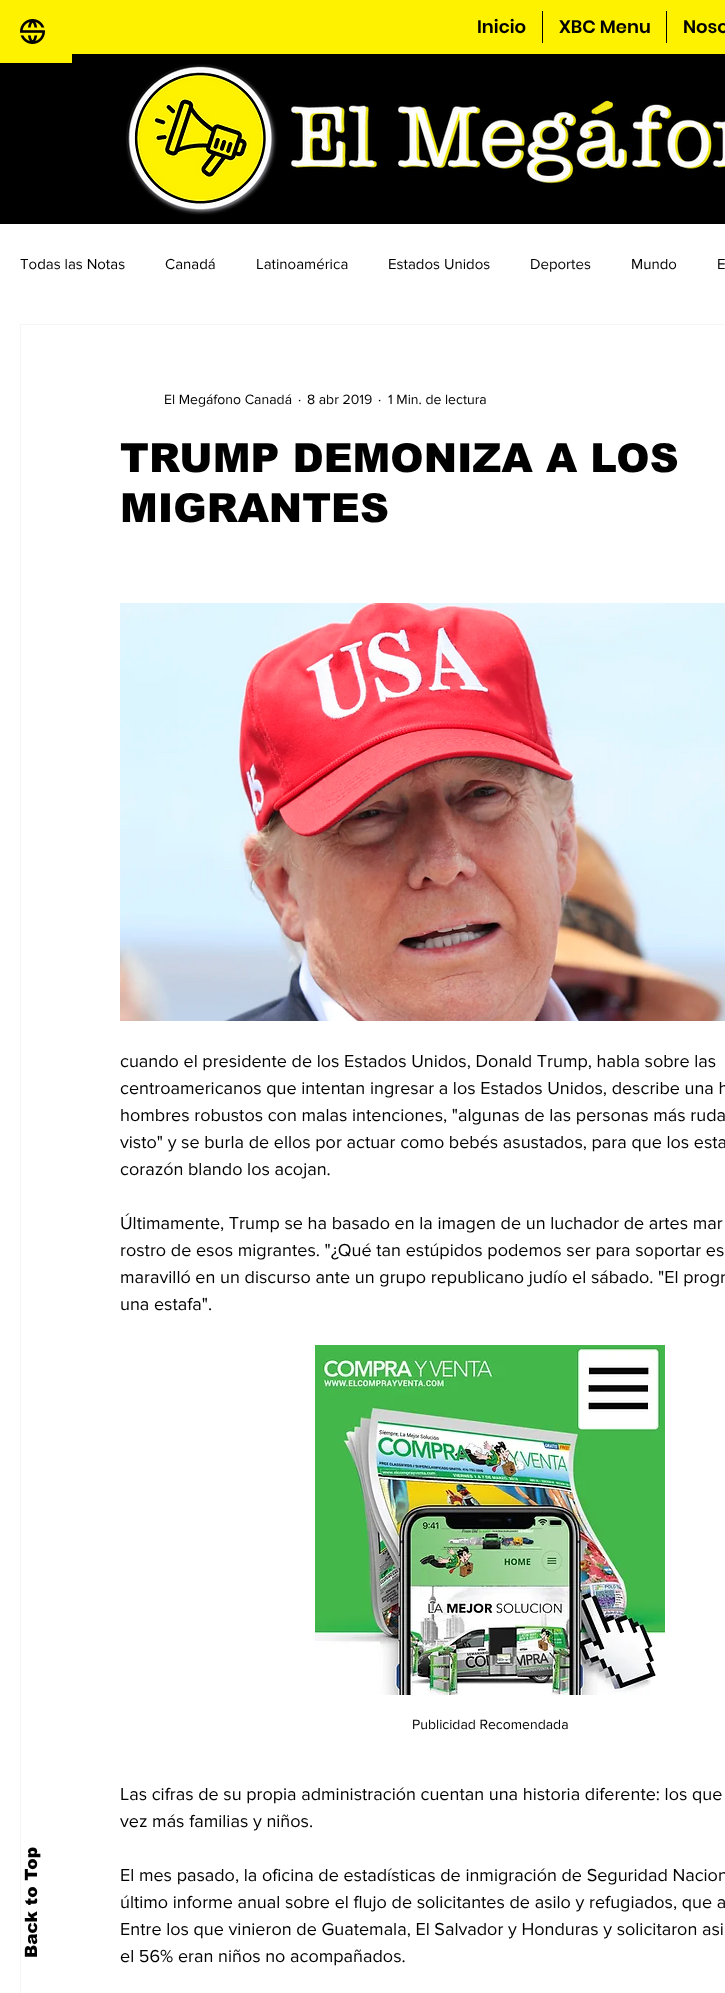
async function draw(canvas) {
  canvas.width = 725;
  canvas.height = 1993;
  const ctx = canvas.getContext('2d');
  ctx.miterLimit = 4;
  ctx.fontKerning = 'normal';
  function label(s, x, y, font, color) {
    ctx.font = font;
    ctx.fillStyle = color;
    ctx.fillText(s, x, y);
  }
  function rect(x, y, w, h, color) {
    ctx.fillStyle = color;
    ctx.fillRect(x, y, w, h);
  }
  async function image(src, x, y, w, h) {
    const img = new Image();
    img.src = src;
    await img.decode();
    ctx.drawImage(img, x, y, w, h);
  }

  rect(0, 0, 725, 1993, '#fff');
  rect(0, 54, 725, 170, '#000');
  rect(0, 0, 72, 63, '#fff200');
  await image('assets/img1.png', 20, 19, 25, 25);
  rect(72, 0, 653, 54, '#fff200');
  label('Inicio', 477, 33, '600 18px Poppins', '#000');
  rect(542, 11, 1, 32, '#000');
  label('XBC Menu', 559, 33, '600 18px Poppins', '#000');
  rect(666, 11, 1, 32, '#000');
  label('Noso', 683, 33, '600 18px Poppins', '#000');
  await image('assets/img2.png', 126, 64, 599, 151);
  label('Todas las Notas', 20, 269, '15px "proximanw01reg"', '#000');
  label('Canadá', 165, 269, '15px "proximanw01reg"', '#000');
  label('Latinoamérica', 256, 269, '15px "proximanw01reg"', '#000');
  label('Estados Unidos', 388, 269, '15px "proximanw01reg"', '#000');
  label('Deportes', 530, 269, '15px "proximanw01reg"', '#000');
  label('Mundo', 631, 269, '15px "proximanw01reg"', '#000');
  label('E', 717, 269, '15px "proximanw01reg"', '#000');
  ctx.strokeStyle = '#f5f5f5';
  ctx.strokeRect(20.5, 324.5, 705, 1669);
  label('El Megáfono Canadá', 164, 404, '14px "proximanw01reg"', '#000');
  label('·', 298, 404, '14px "proximanw01reg"', '#000');
  label('8 abr 2019', 307, 404, '14px "proximanw01reg"', '#000');
  label('·', 378, 404, '14px "proximanw01reg"', '#000');
  label('1 Min. de lectura', 388, 404, '14px "proximanw01reg"', '#000');
  label('TRUMP DEMONIZA A LOS', 120, 472, '900 40px arial', '#000');
  label('MIGRANTES', 120, 522, '900 40px arial', '#000');
  await image('assets/img3.png', 120, 603, 605, 418);
  label('cuando el presidente de los Estados Unidos, Donald Trump, habla sobre las', 120, 1067, '18px "proximanw01reg"', '#000');
  label('centroamericanos que intentan ingresar a los Estados Unidos, describe una h', 120, 1094, '18px "proximanw01reg"', '#000');
  label('hombres robustos con malas intenciones, "algunas de las personas más ruda', 120, 1121, '18px "proximanw01reg"', '#000');
  label('visto" y se burla de ellos por actuar como bebés asustados, para que los esta', 120, 1148, '18px "proximanw01reg"', '#000');
  label('corazón blando los acojan.', 120, 1175, '18px "proximanw01reg"', '#000');
  label('Últimamente, Trump se ha basado en la imagen de un luchador de artes mar', 120, 1229, '18px "proximanw01reg"', '#000');
  label('rostro de esos migrantes. "¿Qué tan estúpidos podemos ser para soportar es', 120, 1256, '18px "proximanw01reg"', '#000');
  label('maravilló en un discurso ante un grupo republicano judío el sábado. "El progr', 120, 1283, '18px "proximanw01reg"', '#000');
  label('una estafa".', 120, 1310, '18px "proximanw01reg"', '#000');
  await image('assets/img4.png', 315, 1345, 350, 350);
  label('Publicidad Recomendada', 412, 1729, '14px "proximanw01reg"', '#000');
  label('Las cifras de su propia administración cuentan una historia diferente: los que', 120, 1800, '18px "proximanw01reg"', '#000');
  label('vez más familias y niños.', 120, 1827, '18px "proximanw01reg"', '#000');
  label('El mes pasado, la oficina de estadísticas de inmigración de Seguridad Nacion', 120, 1881, '18px "proximanw01reg"', '#000');
  label('último informe anual sobre el flujo de solicitantes de asilo y refugiados, que a', 120, 1908, '18px "proximanw01reg"', '#000');
  label('Entre los que vinieron de Guatemala, El Salvador y Honduras y solicitaron asi', 120, 1935, '18px "proximanw01reg"', '#000');
  label('el 56% eran niños no acompañados.', 120, 1962, '18px "proximanw01reg"', '#000');
  ctx.font = '900 17px arial';
  ctx.save();
  ctx.translate(37, 1958);
  ctx.rotate(-90 * Math.PI / 180);
  ctx.fillText('Back to Top', 0, 0);
  ctx.restore();
}

draw(document.querySelector('canvas'));
